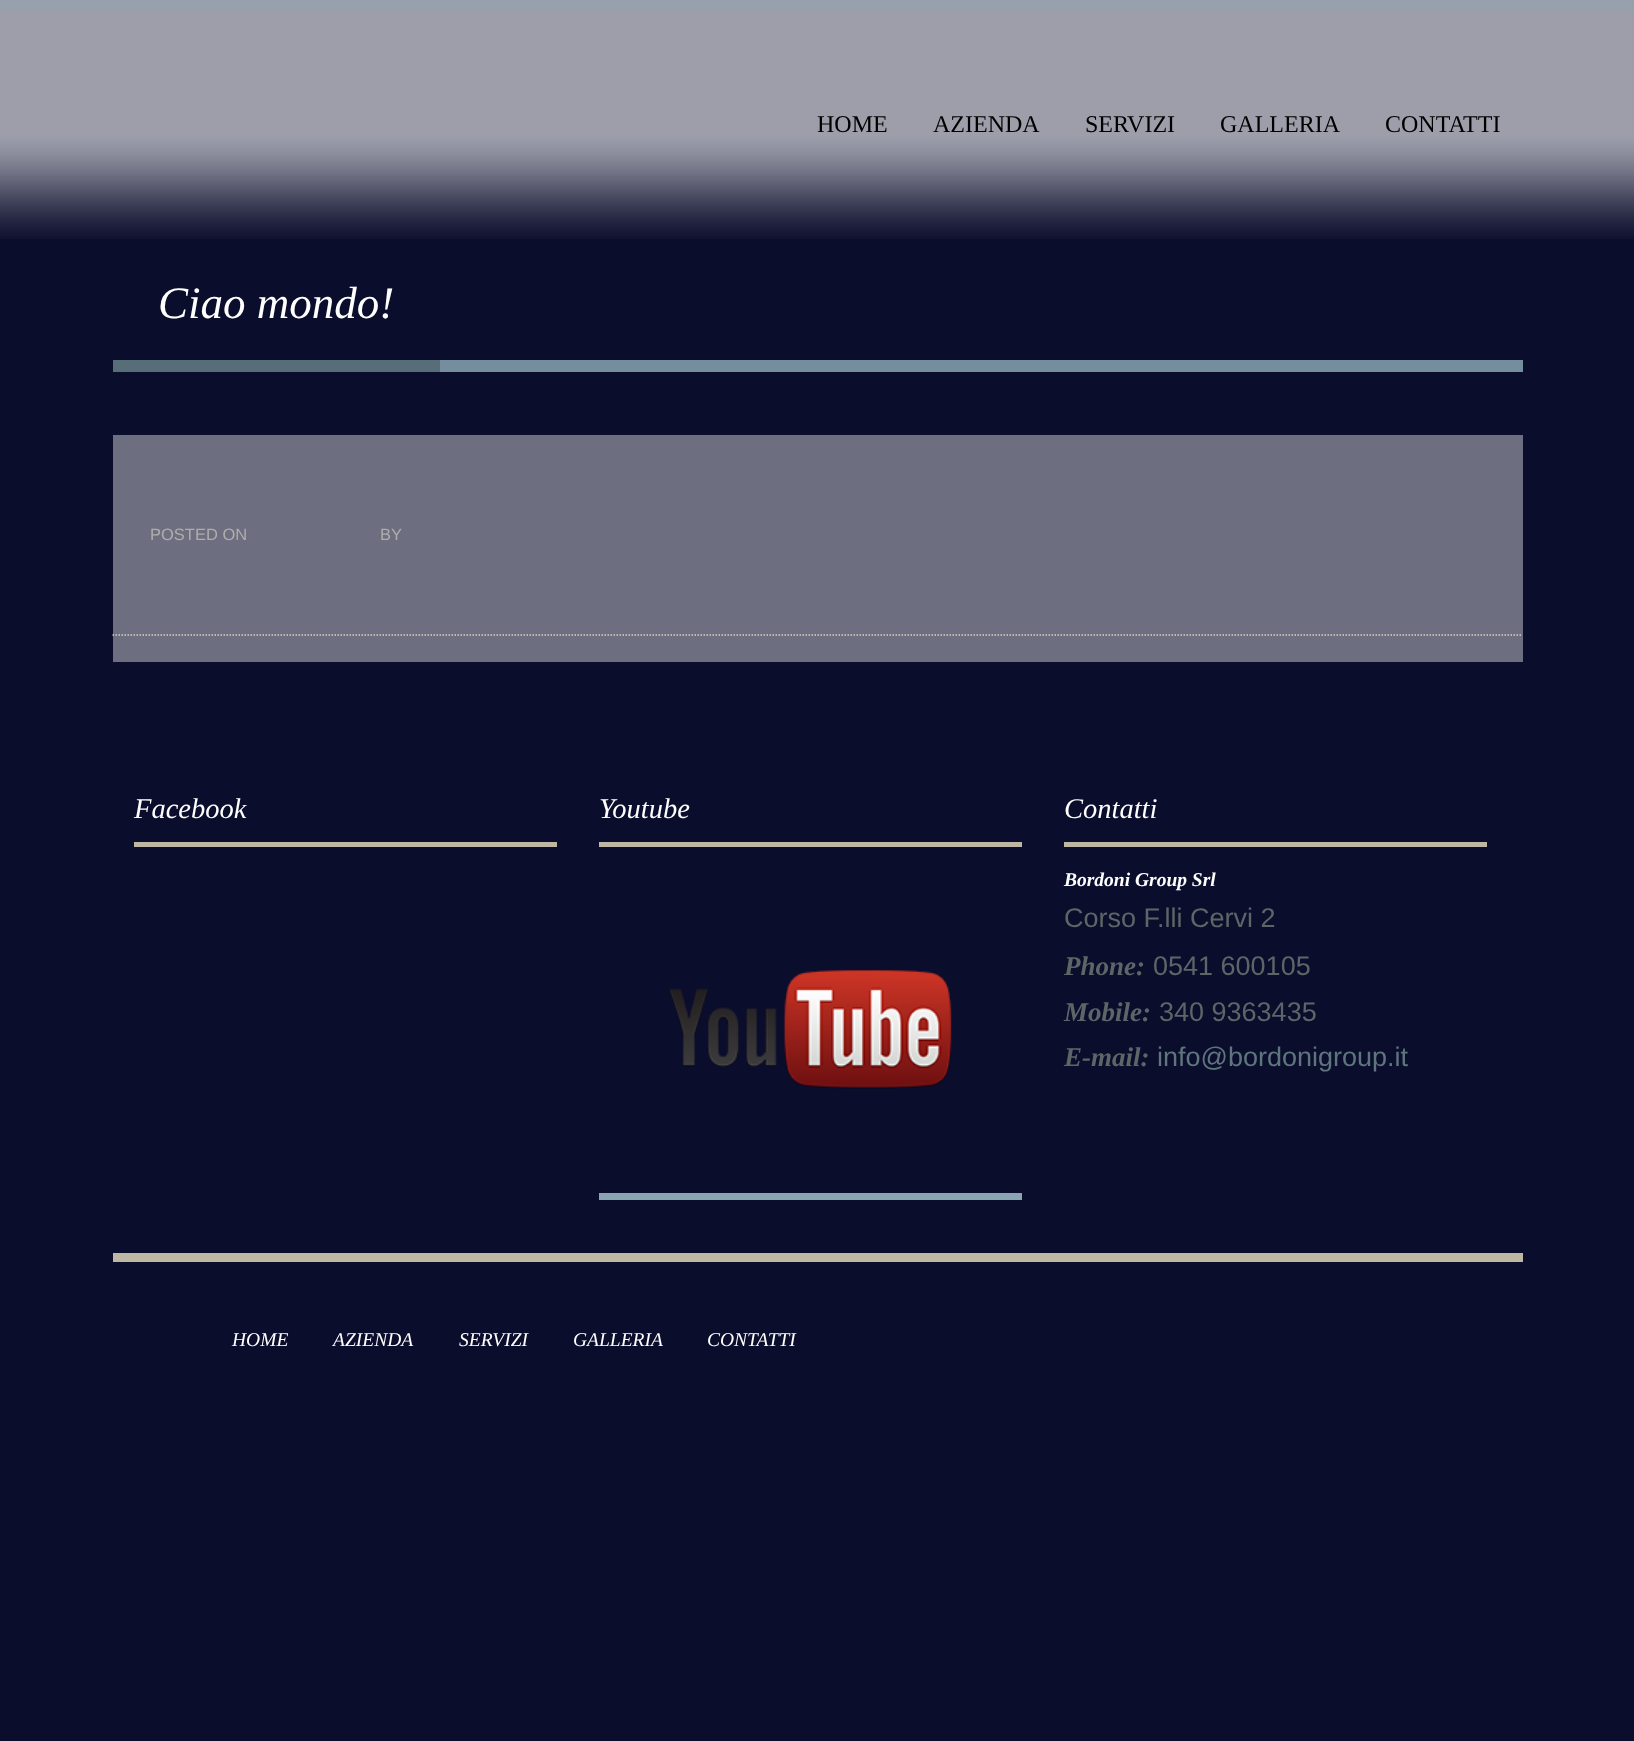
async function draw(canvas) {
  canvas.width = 1634;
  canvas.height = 1741;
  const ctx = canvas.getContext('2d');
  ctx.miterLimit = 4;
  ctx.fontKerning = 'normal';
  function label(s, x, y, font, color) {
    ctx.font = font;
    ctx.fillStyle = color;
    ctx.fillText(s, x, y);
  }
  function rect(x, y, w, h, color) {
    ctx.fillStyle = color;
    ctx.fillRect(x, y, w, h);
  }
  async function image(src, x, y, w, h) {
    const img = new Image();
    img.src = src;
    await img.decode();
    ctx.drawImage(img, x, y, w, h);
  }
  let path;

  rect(0, 0, 1634, 1741, '#0b0d2c');
  rect(113, 435, 1410, 227, '#6d6e80');
  await image('assets/img1.png', 0, 12, 1634, 227);
  rect(0, 0, 1634, 12, '#96a1ad');
  label('HOME', 817, 132, '24px Liberation Serif', '#000');
  label('AZIENDA', 933, 132, '24px Liberation Serif', '#000');
  label('SERVIZI', 1085, 132, '24px Liberation Serif', '#000');
  label('GALLERIA', 1220, 132, '24px Liberation Serif', '#000');
  label('CONTATTI', 1385, 132, '24px Liberation Serif', '#000');
  rect(113, 360, 327, 12, '#576e78');
  label('Ciao mondo!', 158, 318, 'italic 45px Liberation Serif', '#fff');
  rect(440, 360, 1083, 12, '#758e9d');
  path = new Path2D('M112.5 635H1522.5');
  ctx.strokeStyle = '#d7d4c8';
  ctx.lineWidth = 1.5;
  ctx.setLineDash([1.5, 1.5]);
  ctx.stroke(path);
  label('POSTED ON', 150, 540, '16.5px Liberation Sans', '#aeaeab');
  label('BY', 380, 540, '16.5px Liberation Sans', '#aeaeab');
  rect(134, 842, 423, 5, '#bdb7a4');
  label('Facebook', 134, 818, 'italic 28.5px Liberation Serif', '#fff');
  rect(599, 842, 423, 5, '#bdb7a4');
  label('Youtube', 599, 818, 'italic 28.5px Liberation Serif', '#fff');
  await image('assets/img2.png', 669, 970, 283, 119);
  rect(599, 1193, 423, 7, '#88a5b1');
  rect(1064, 842, 423, 5, '#bdb7a4');
  label('Contatti', 1064, 818, 'italic 28.5px Liberation Serif', '#fff');
  label('Bordoni Group Srl', 1064, 886, 'italic bold 19.5px Liberation Serif', '#fff');
  label('Corso F.lli Cervi 2', 1064, 927, '27px Liberation Sans', '#5f6567');
  label('Phone:', 1064, 975, 'italic bold 27px Liberation Serif', '#5f6567');
  label('0541 600105', 1153, 975, '27px Liberation Sans', '#5f6567');
  label('Mobile:', 1064, 1021, 'italic bold 27px Liberation Serif', '#5f6567');
  label('340 9363435', 1159, 1021, '27px Liberation Sans', '#5f6567');
  label('E-mail:', 1064, 1066, 'italic bold 27px Liberation Serif', '#5f6567');
  label('info@bordonigroup.it', 1157, 1066, '27px Liberation Sans', '#5f757e');
  rect(113, 1253, 1410, 9, '#bdb7a4');
  label('HOME', 232, 1346, 'italic 19.5px Liberation Serif', '#fff');
  label('AZIENDA', 333, 1346, 'italic 19.5px Liberation Serif', '#fff');
  label('SERVIZI', 459, 1346, 'italic 19.5px Liberation Serif', '#fff');
  label('GALLERIA', 573, 1346, 'italic 19.5px Liberation Serif', '#fff');
  label('CONTATTI', 707, 1346, 'italic 19.5px Liberation Serif', '#fff');
}

draw(document.querySelector('canvas'));
